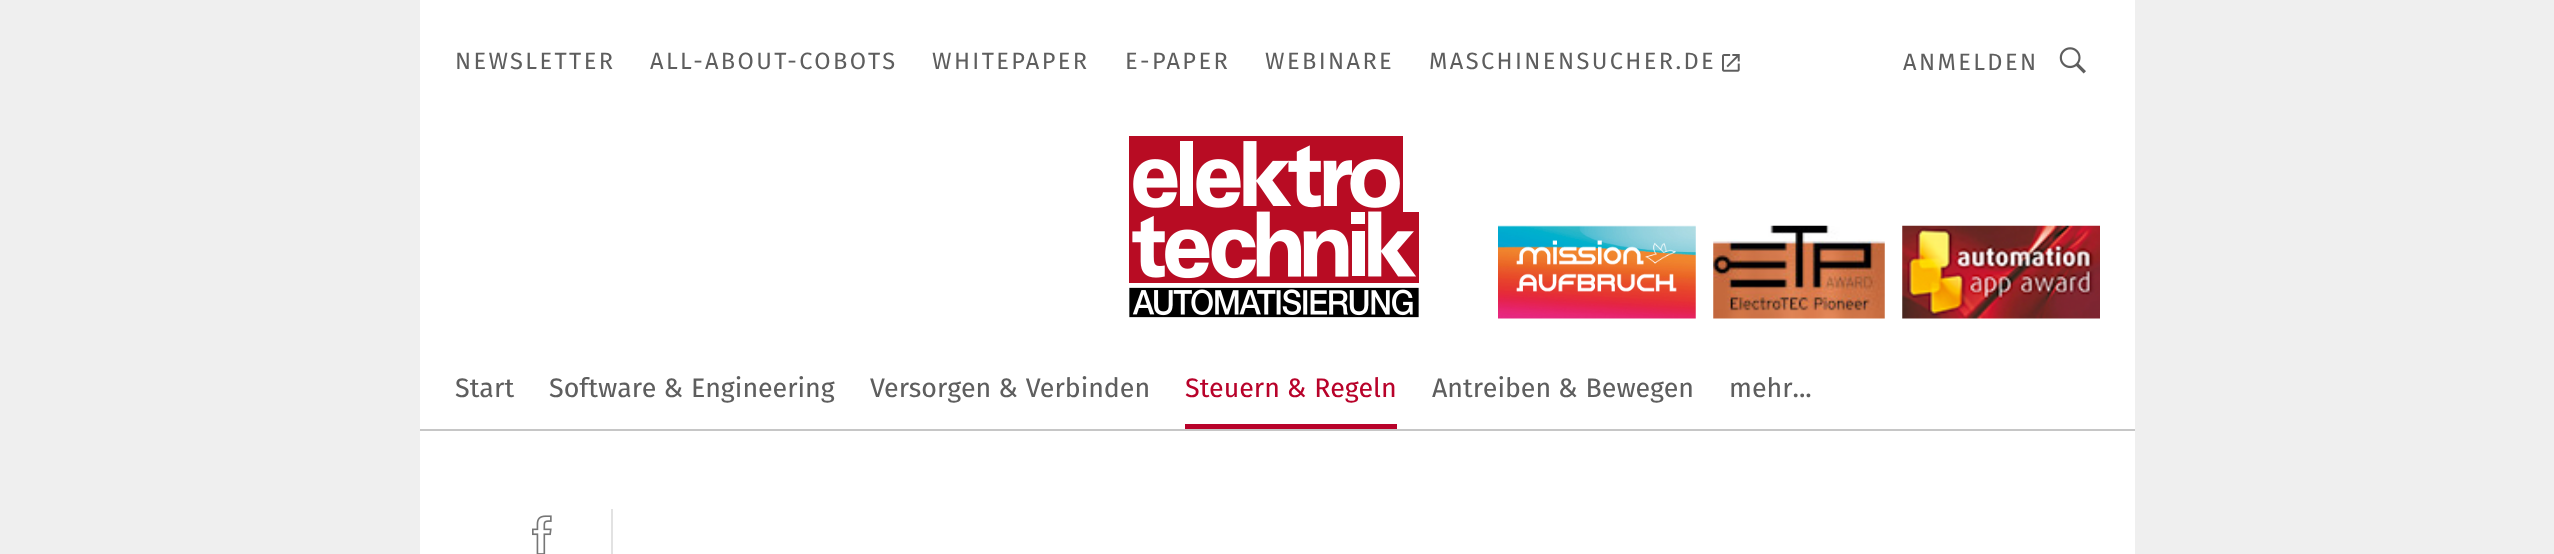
async function draw(canvas) {
  canvas.width = 2554;
  canvas.height = 554;
  const ctx = canvas.getContext('2d');
  ctx.miterLimit = 4;
  ctx.fontKerning = 'normal';
  function label(s, x, y, font, color) {
    ctx.font = font;
    ctx.fillStyle = color;
    ctx.fillText(s, x, y);
  }
  function rect(x, y, w, h, color) {
    ctx.fillStyle = color;
    ctx.fillRect(x, y, w, h);
  }
  async function image(src, x, y, w, h) {
    const img = new Image();
    img.src = src;
    await img.decode();
    ctx.drawImage(img, x, y, w, h);
  }

  rect(0, 0, 2554, 554, '#efefef');
  rect(420, 0, 1715, 554, '#fff');
  rect(420, 429, 1715, 2, '#c6c6c6');
  ctx.letterSpacing = '2.4px';
  label('NEWSLETTER', 455, 69, '23.6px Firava', '#5e5e5e');
  label('ALL-ABOUT-COBOTS', 650, 69, '23.6px Firava', '#5e5e5e');
  label('WHITEPAPER', 932, 69, '23.6px Firava', '#5e5e5e');
  label('E-PAPER', 1125, 69, '23.6px Firava', '#5e5e5e');
  label('WEBINARE', 1265, 69, '23.6px Firava', '#5e5e5e');
  label('MASCHINENSUCHER.DE', 1429, 69, '23.6px Firava', '#5e5e5e');
  await image('assets/img1.png', 1722, 54, 18, 18);
  label('ANMELDEN', 1903, 70, '23.6px Firava', '#5e5e5e');
  await image('assets/img2.png', 2059, 47, 27, 27);
  await image('assets/img3.png', 1129, 136, 290, 182);
  await image('assets/img4.png', 1498, 225, 198, 94);
  await image('assets/img5.png', 1713, 225, 172, 94);
  await image('assets/img6.png', 1902, 225, 198, 94);
  ctx.letterSpacing = '0px';
  label('Start', 455, 397, '26.75px "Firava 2"', '#5e5e5e');
  label('Software & Engineering', 549, 397, '26.75px "Firava 2"', '#5e5e5e');
  label('Versorgen & Verbinden', 870, 397, '26.75px "Firava 2"', '#5e5e5e');
  rect(1185, 424, 212, 5, '#b8022a');
  label('Steuern & Regeln', 1185, 397, '26.75px "Firava 2"', '#b8022a');
  label('Antreiben & Bewegen', 1432, 397, '26.75px "Firava 2"', '#5e5e5e');
  label('mehr...', 1729, 397, '26.75px "Firava 2"', '#5e5e5e');
  rect(611, 509, 2, 45, '#e2e2e2');
  await image('assets/img7.png', 532, 515, 20, 39);
}

draw(document.querySelector('canvas'));
